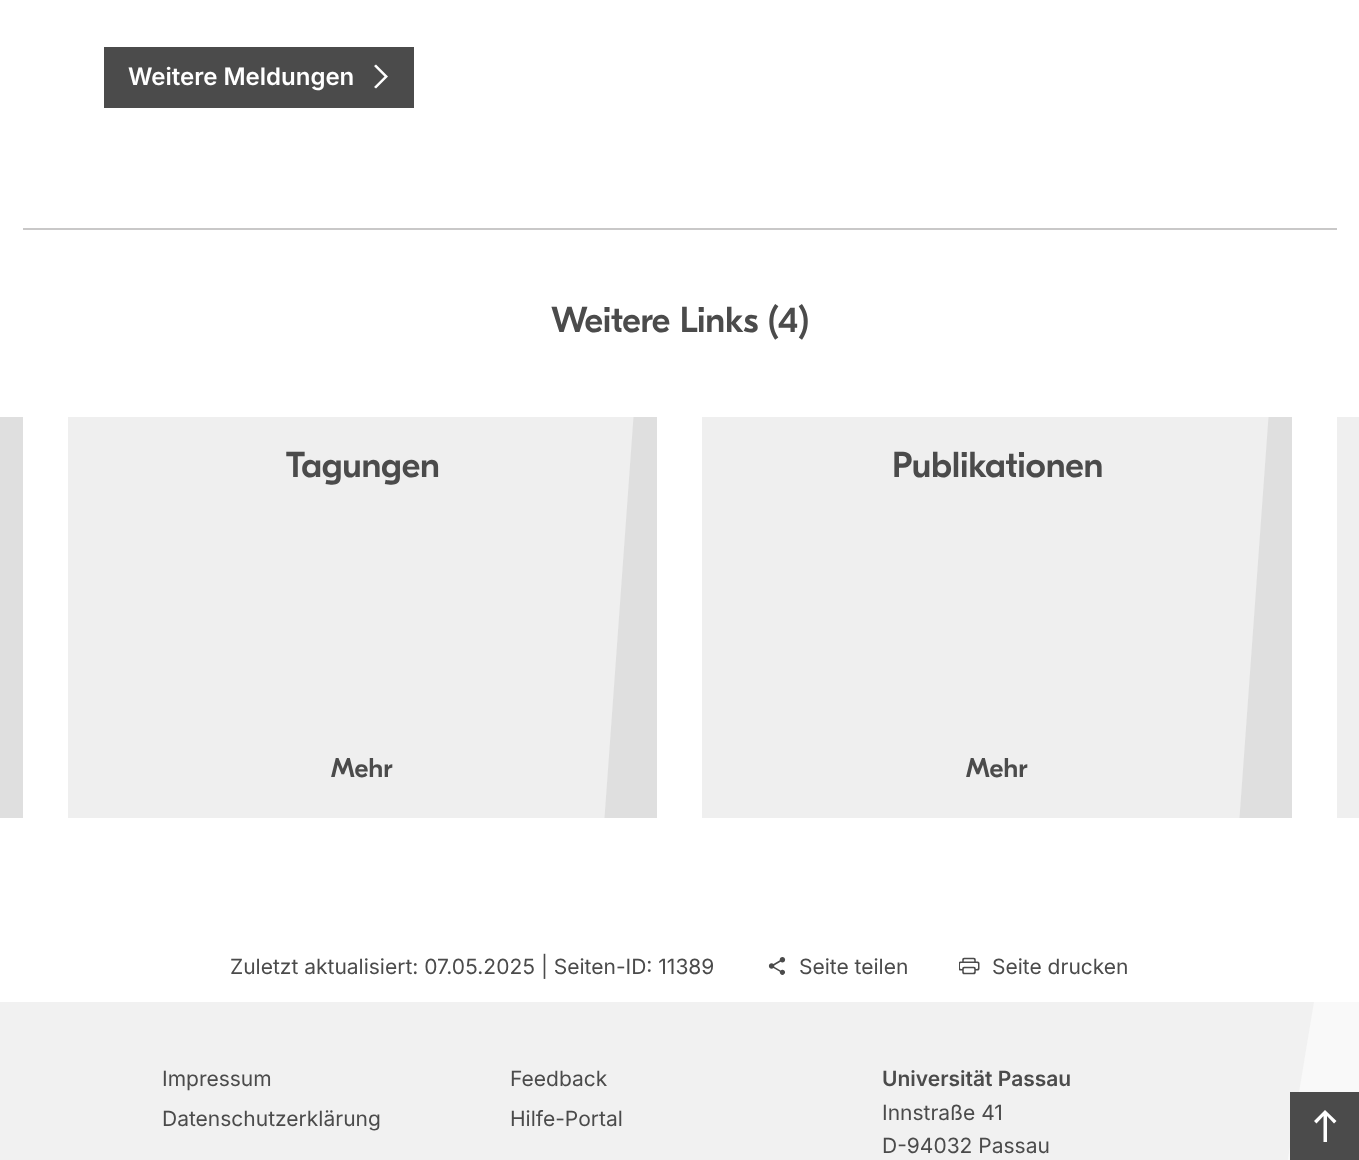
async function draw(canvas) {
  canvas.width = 1359;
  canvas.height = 1160;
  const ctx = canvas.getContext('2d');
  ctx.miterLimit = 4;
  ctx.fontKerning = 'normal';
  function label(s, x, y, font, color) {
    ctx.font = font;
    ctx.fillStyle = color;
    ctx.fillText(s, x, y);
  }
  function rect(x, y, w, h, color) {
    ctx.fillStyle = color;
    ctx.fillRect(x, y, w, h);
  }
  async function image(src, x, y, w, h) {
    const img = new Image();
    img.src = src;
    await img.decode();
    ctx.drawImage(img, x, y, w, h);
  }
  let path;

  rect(0, 0, 1359, 1160, '#fff');
  rect(104, 47, 310, 61, '#4b4b4b');
  label('Weitere Meldungen', 128, 85, '600 24px Inter', '#fff');
  path = new Path2D('M374 87L384.5 76.5L374 66L376 64.5L388 76.5L376 88.5Z');
  ctx.fill(path);
  rect(23, 228, 1314, 2, '#c9c8c8');
  ctx.letterSpacing = '-0.25px';
  label('Weitere Links (4)', 551, 332, '500 36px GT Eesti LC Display', '#4b4b4b');
  ctx.save();
  ctx.beginPath();
  ctx.rect(0, 417, 23, 401);
  ctx.clip();
  ctx.fillStyle = '#dfdfdf';
  path = new Path2D('M-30 825L0 410H30V825Z');
  ctx.fill(path);
  ctx.restore();
  rect(68, 417, 566, 401, '#efefef');
  label('Tagungen', 286, 477, '500 36px GT Eesti LC Display', '#4b4b4b');
  ctx.letterSpacing = '0px';
  label('Mehr', 331, 777, '500 27px GT Eesti LC Display', '#4b4b4b');
  ctx.save();
  ctx.beginPath();
  ctx.rect(68, 417, 589, 401);
  ctx.clip();
  ctx.fillStyle = '#dfdfdf';
  path = new Path2D('M604 825L634 410H664V825Z');
  ctx.fill(path);
  ctx.restore();
  rect(702, 417, 567, 401, '#efefef');
  ctx.letterSpacing = '-0.25px';
  label('Publikationen', 892, 477, '500 36px GT Eesti LC Display', '#4b4b4b');
  ctx.letterSpacing = '0px';
  label('Mehr', 966, 777, '500 27px GT Eesti LC Display', '#4b4b4b');
  ctx.save();
  ctx.beginPath();
  ctx.rect(702, 417, 590, 401);
  ctx.clip();
  ctx.fillStyle = '#dfdfdf';
  path = new Path2D('M1239 825L1269 410H1299V825Z');
  ctx.fill(path);
  ctx.restore();
  rect(1337, 417, 22, 401, '#efefef');
  label('Zuletzt aktualisiert: 07.05.2025 | Seiten-ID: 11389', 230, 974, '21px Inter', '#4b4b4b');
  await image('assets/img1.png', 768, 957, 18, 18);
  label('Seite teilen', 799, 974, '21px Inter', '#4b4b4b');
  await image('assets/img2.png', 959, 957, 21, 18);
  label('Seite drucken', 992, 974, '21px Inter', '#4b4b4b');
  rect(0, 1002, 1314, 158, '#f1f1f1');
  label('Impressum', 162, 1086, '21px Inter', '#4b4b4b');
  label('Feedback', 510, 1086, '21px Inter', '#4b4b4b');
  label('Datenschutzerklärung', 162, 1126, '21px Inter', '#4b4b4b');
  label('Hilfe-Portal', 510, 1126, '21px Inter', '#4b4b4b');
  label('Universität Passau', 882, 1086, '600 21px Inter', '#4b4b4b');
  label('Innstraße 41', 882, 1120, '21px Inter', '#4b4b4b');
  label('D-94032 Passau', 882, 1153, '21px Inter', '#4b4b4b');
  ctx.fillStyle = '#f9f9f9';
  path = new Path2D('M1314 1002L1209 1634H1359V1002Z');
  ctx.fill(path);
  rect(1290, 1092, 69, 68, '#4b4b4b');
  ctx.fillStyle = '#fff';
  path = new Path2D('M1314 1121L1316.5 1123.5L1323.5 1116V1142H1327V1116L1334 1123.5L1336.5 1121L1325 1110Z');
  ctx.fill(path);
}

draw(document.querySelector('canvas'));
